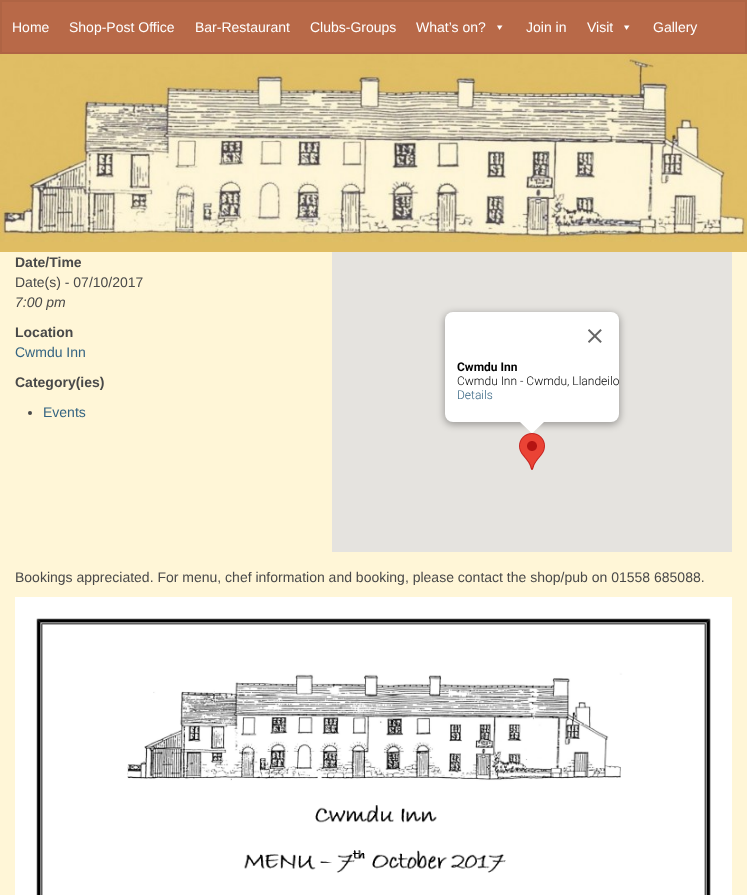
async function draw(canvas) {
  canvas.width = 747;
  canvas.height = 895;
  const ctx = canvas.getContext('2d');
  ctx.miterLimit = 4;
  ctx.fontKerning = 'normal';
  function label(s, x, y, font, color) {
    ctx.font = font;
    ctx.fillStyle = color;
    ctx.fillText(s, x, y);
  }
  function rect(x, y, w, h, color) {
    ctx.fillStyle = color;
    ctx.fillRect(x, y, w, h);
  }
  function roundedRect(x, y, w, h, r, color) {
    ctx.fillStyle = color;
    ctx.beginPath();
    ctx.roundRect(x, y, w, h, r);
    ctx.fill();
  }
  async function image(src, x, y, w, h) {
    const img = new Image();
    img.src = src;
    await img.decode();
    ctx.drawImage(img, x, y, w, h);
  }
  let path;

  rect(0, 0, 747, 895, '#e0bd63');
  ctx.fillStyle = '#b86948';
  ctx.beginPath();
  ctx.rect(1, 1, 745, 52);
  ctx.fill();
  ctx.strokeStyle = '#af6444';
  ctx.lineWidth = 2;
  ctx.stroke();
  label('Home', 12, 32, '14px Liberation Sans', '#fff');
  label('Shop-Post Office', 69, 32, '14px Liberation Sans', '#fff');
  label('Bar-Restaurant', 195, 32, '14px Liberation Sans', '#fff');
  label('Clubs-Groups', 310, 32, '14px Liberation Sans', '#fff');
  label('What’s on?', 416, 32, '14px Liberation Sans', '#fff');
  path = new Path2D('M502.5 25.5L499.5 30L497 25.5Z');
  ctx.fill(path);
  label('Join in', 526, 32, '14px Liberation Sans', '#fff');
  label('Visit', 587, 32, '14px Liberation Sans', '#fff');
  path = new Path2D('M629.5 25.5L626.5 30L624 25.5Z');
  ctx.fill(path);
  label('Gallery', 653, 32, '14px Liberation Sans', '#fff');
  await image('assets/img1.png', 0, 54, 747, 188);
  rect(0, 252, 747, 643, '#fff6d7');
  label('Date/Time', 15, 267, 'bold 14px Liberation Sans', '#494949');
  label('Date(s) - 07/10/2017', 15, 287, '14px Liberation Sans', '#494949');
  label('7:00 pm', 15, 307, 'italic 14px Liberation Sans', '#494949');
  label('Location', 15, 337, 'bold 14px Liberation Sans', '#494949');
  label('Cwmdu Inn', 15, 357, '14px Liberation Sans', '#356482');
  label('Category(ies)', 15, 387, 'bold 14px Liberation Sans', '#494949');
  rect(332, 252, 400, 300, '#e5e3df');
  await image('assets/img3.png', 519, 433, 26, 37);
  ctx.fillStyle = '#0000004d';
  ctx.filter = 'blur(3.5px)';
  ctx.beginPath();
  ctx.roundRect(444, 313, 176, 112, 9);
  ctx.fill();
  ctx.filter = 'none';
  roundedRect(445, 312, 174, 110, 8, '#fff');
  await image('assets/img2.png', 588, 329, 14, 14);
  label('Cwmdu Inn', 457, 371, 'bold 12px Roboto', '#000');
  label('Cwmdu Inn - Cwmdu, Llandeilo', 457, 385, '300 12px Roboto', '#000');
  label('Details', 457, 399, '300 12px Roboto', '#356482');
  ctx.fillStyle = '#fff';
  path = new Path2D('M520 422V421.5H544.5L532.5 433H531.5Z');
  ctx.fill(path);
  ctx.fillStyle = '#494949';
  ctx.beginPath();
  ctx.arc(30, 413, 2, 0, 2 * Math.PI);
  ctx.fill();
  label('Events', 43, 417, '14px Liberation Sans', '#356482');
  label('Bookings appreciated. For menu, chef information and booking, please contact the shop/pub on 01558 685088.', 15, 582, '14px Liberation Sans', '#494949');
  await image('assets/img4.png', 15, 597, 717, 298);
}

draw(document.querySelector('canvas'));
